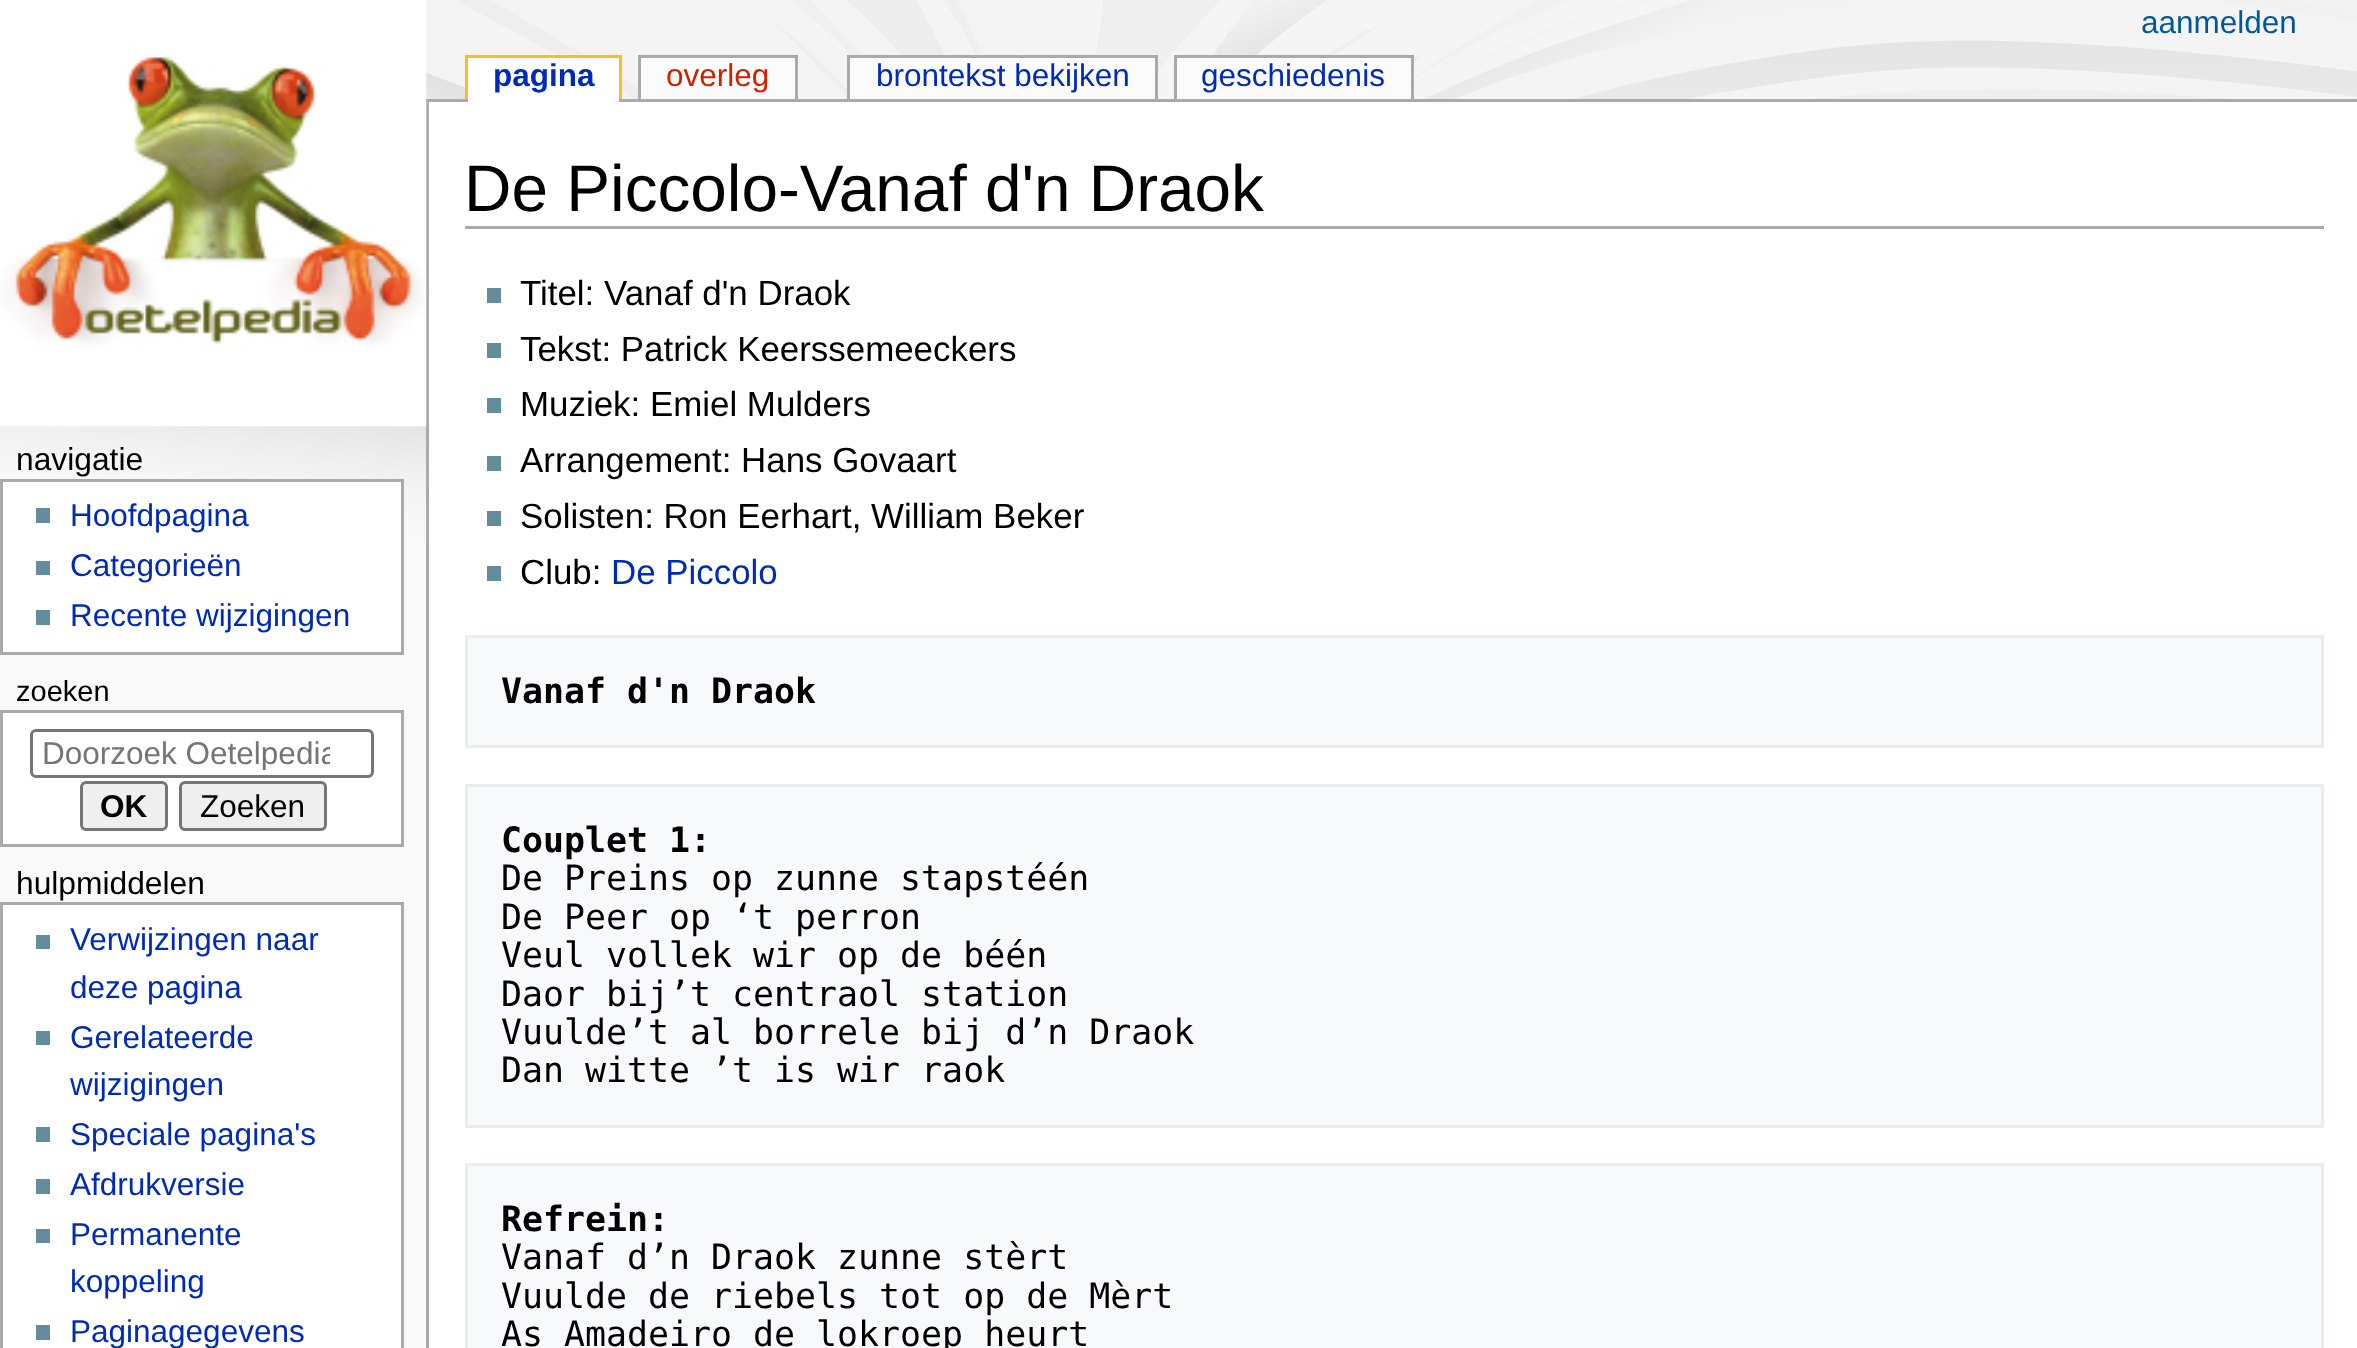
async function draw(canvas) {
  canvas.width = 2357;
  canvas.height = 1348;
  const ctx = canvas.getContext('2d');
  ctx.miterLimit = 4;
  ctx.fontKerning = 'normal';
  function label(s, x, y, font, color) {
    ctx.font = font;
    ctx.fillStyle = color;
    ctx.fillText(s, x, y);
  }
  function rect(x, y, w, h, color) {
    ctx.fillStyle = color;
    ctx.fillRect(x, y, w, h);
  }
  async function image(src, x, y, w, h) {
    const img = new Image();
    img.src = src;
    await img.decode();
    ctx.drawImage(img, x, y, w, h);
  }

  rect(0, 0, 2357, 1348, '#f9f9f9');
  await image('assets/img1.png', 0, 0, 2357, 577);
  rect(426, 99, 1931, 3, '#aaa');
  rect(426, 99, 3, 1249, '#aaa');
  await image('assets/img2.png', 0, 0, 427, 427);
  label('aanmelden', 2141, 33, '31.5px Liberation Sans', '#005896');
  rect(468, 58, 151, 44, '#fff');
  label('pagina', 493, 86, 'bold 31.5px Liberation Sans', '#002bb8');
  rect(465, 55, 157, 3, '#fabd23');
  rect(619, 55, 3, 44, '#fabd23');
  rect(465, 55, 3, 44, '#fabd23');
  rect(641, 58, 154, 41, '#fbfbfb');
  label('overleg', 666, 86, '31.5px Liberation Sans', '#c20');
  rect(638, 55, 160, 3, '#aaa');
  rect(795, 55, 3, 44, '#aaa');
  rect(638, 55, 3, 44, '#aaa');
  rect(850, 58, 305, 41, '#fbfbfb');
  label('brontekst bekijken', 876, 86, '31.5px Liberation Sans', '#002bb8');
  rect(847, 55, 311, 3, '#aaa');
  rect(1155, 55, 3, 44, '#aaa');
  rect(847, 55, 3, 44, '#aaa');
  rect(1177, 58, 234, 41, '#fbfbfb');
  label('geschiedenis', 1201, 86, '31.5px Liberation Sans', '#002bb8');
  rect(1174, 55, 240, 3, '#aaa');
  rect(1411, 55, 3, 44, '#aaa');
  rect(1174, 55, 3, 44, '#aaa');
  label('navigatie', 16, 470, '31.75px Liberation Sans', '#000');
  ctx.fillStyle = '#fff';
  ctx.beginPath();
  ctx.rect(1.5, 480.5, 401, 173);
  ctx.fill();
  ctx.strokeStyle = '#aaa';
  ctx.lineWidth = 3;
  ctx.stroke();
  rect(36, 508, 14, 15, '#638c9c');
  label('Hoofdpagina', 70, 526, '31.5px Liberation Sans', '#002bb8');
  rect(36, 561, 14, 14, '#638c9c');
  label('Categorieën', 70, 576, '31.5px Liberation Sans', '#002bb8');
  rect(36, 610, 14, 15, '#638c9c');
  label('Recente wijzigingen', 70, 626, '31.5px Liberation Sans', '#002bb8');
  label('zoeken', 16, 701, '29px Liberation Sans', '#000');
  ctx.fillStyle = '#fff';
  ctx.beginPath();
  ctx.rect(1.5, 711.5, 401, 134);
  ctx.fill();
  ctx.stroke();
  ctx.beginPath();
  ctx.roundRect(31.5, 730.5, 341, 46, 4.5);
  ctx.strokeStyle = '#767676';
  ctx.stroke();
  ctx.save();
  ctx.beginPath();
  ctx.rect(41, 737, 289, 33);
  ctx.clip();
  label('Doorzoek Oetelpedia', 42, 764, '31.5px Liberation Sans', '#757575');
  ctx.restore();
  ctx.fillStyle = '#efefef';
  ctx.beginPath();
  ctx.roundRect(81.5, 782.5, 85, 47, 4.5);
  ctx.fill();
  ctx.stroke();
  label('OK', 100, 817, 'bold 31.5px Liberation Sans', '#000');
  ctx.fillStyle = '#efefef';
  ctx.beginPath();
  ctx.roundRect(180.5, 782.5, 145, 47, 4.5);
  ctx.fill();
  ctx.stroke();
  label('Zoeken', 200, 817, '31.5px Liberation Sans', '#000');
  label('hulpmiddelen', 16, 894, '31.75px Liberation Sans', '#000');
  ctx.fillStyle = '#fff';
  ctx.beginPath();
  ctx.rect(1.5, 903.5, 401, 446);
  ctx.fill();
  ctx.strokeStyle = '#aaa';
  ctx.stroke();
  rect(36, 935, 14, 14, '#638c9c');
  label('Verwijzingen naar', 70, 950, '31.5px Liberation Sans', '#002bb8');
  label('deze pagina', 70, 998, '31.5px Liberation Sans', '#002bb8');
  rect(36, 1031, 14, 14, '#638c9c');
  label('Gerelateerde', 70, 1048, '31.5px Liberation Sans', '#002bb8');
  label('wijzigingen', 70, 1095, '31.5px Liberation Sans', '#002bb8');
  rect(36, 1127, 14, 15, '#638c9c');
  label('Speciale pagina\'s', 70, 1145, '31.5px Liberation Sans', '#002bb8');
  rect(36, 1179, 14, 15, '#638c9c');
  label('Afdrukversie', 70, 1195, '31.5px Liberation Sans', '#002bb8');
  rect(36, 1229, 14, 14, '#638c9c');
  label('Permanente', 70, 1245, '31.5px Liberation Sans', '#002bb8');
  label('koppeling', 70, 1292, '31.5px Liberation Sans', '#002bb8');
  rect(36, 1325, 14, 15, '#638c9c');
  label('Paginagegevens', 70, 1342, '31.5px Liberation Sans', '#002bb8');
  rect(429, 102, 1928, 1246, '#fff');
  rect(465, 226, 1859, 3, '#aaa');
  label('De Piccolo-Vanaf d\'n Draok', 464, 211, '65.7px Liberation Sans', '#000');
  rect(487, 288, 14, 15, '#638c9c');
  label('Titel: Vanaf d\'n Draok', 520, 305, '34.9px Liberation Sans', '#000');
  rect(487, 343, 14, 15, '#638c9c');
  label('Tekst: Patrick Keerssemeeckers', 520, 361, '34.9px Liberation Sans', '#000');
  rect(487, 398, 14, 15, '#638c9c');
  label('Muziek: Emiel Mulders', 520, 416, '34.9px Liberation Sans', '#000');
  rect(487, 456, 14, 15, '#638c9c');
  label('Arrangement: Hans Govaart', 520, 472, '34.9px Liberation Sans', '#000');
  rect(487, 511, 14, 15, '#638c9c');
  label('Solisten: Ron Eerhart, William Beker', 520, 528, '34.9px Liberation Sans', '#000');
  rect(487, 566, 14, 15, '#638c9c');
  label('Club:', 520, 584, '34.9px Liberation Sans', '#000');
  label('De Piccolo', 611, 584, '34.9px Liberation Sans', '#002bb8');
  ctx.fillStyle = '#f8f9fa';
  ctx.beginPath();
  ctx.rect(466.5, 636.5, 1856, 110);
  ctx.fill();
  ctx.strokeStyle = '#eaecf0';
  ctx.stroke();
  label('Vanaf d\'n Draok', 501, 703, 'bold 34.9px DejaVu Sans Mono', '#000');
  ctx.fillStyle = '#f8f9fa';
  ctx.beginPath();
  ctx.rect(466.5, 785.5, 1856, 341);
  ctx.fill();
  ctx.stroke();
  label('Couplet 1:', 501, 852, 'bold 34.9px DejaVu Sans Mono', '#000');
  label('De Preins op zunne stapstéén', 501, 890, '34.9px DejaVu Sans Mono', '#000');
  label('De Peer op ‘t perron', 501, 929, '34.9px DejaVu Sans Mono', '#000');
  label('Veul vollek wir op de béén', 501, 967, '34.9px DejaVu Sans Mono', '#000');
  label('Daor bij’t centraol station', 501, 1006, '34.9px DejaVu Sans Mono', '#000');
  label('Vuulde’t al borrele bij d’n Draok', 501, 1044, '34.9px DejaVu Sans Mono', '#000');
  label('Dan witte ’t is wir raok', 501, 1082, '34.9px DejaVu Sans Mono', '#000');
  ctx.fillStyle = '#f8f9fa';
  ctx.beginPath();
  ctx.rect(466.5, 1164.5, 1856, 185);
  ctx.fill();
  ctx.stroke();
  label('Refrein:', 501, 1231, 'bold 34.9px DejaVu Sans Mono', '#000');
  label('Vanaf d’n Draok zunne stèrt', 501, 1269, '34.9px DejaVu Sans Mono', '#000');
  label('Vuulde de riebels tot op de Mèrt', 501, 1308, '34.9px DejaVu Sans Mono', '#000');
  label('As Amadeiro de lokroep heurt', 501, 1346, '34.9px DejaVu Sans Mono', '#000');
}

draw(document.querySelector('canvas'));
